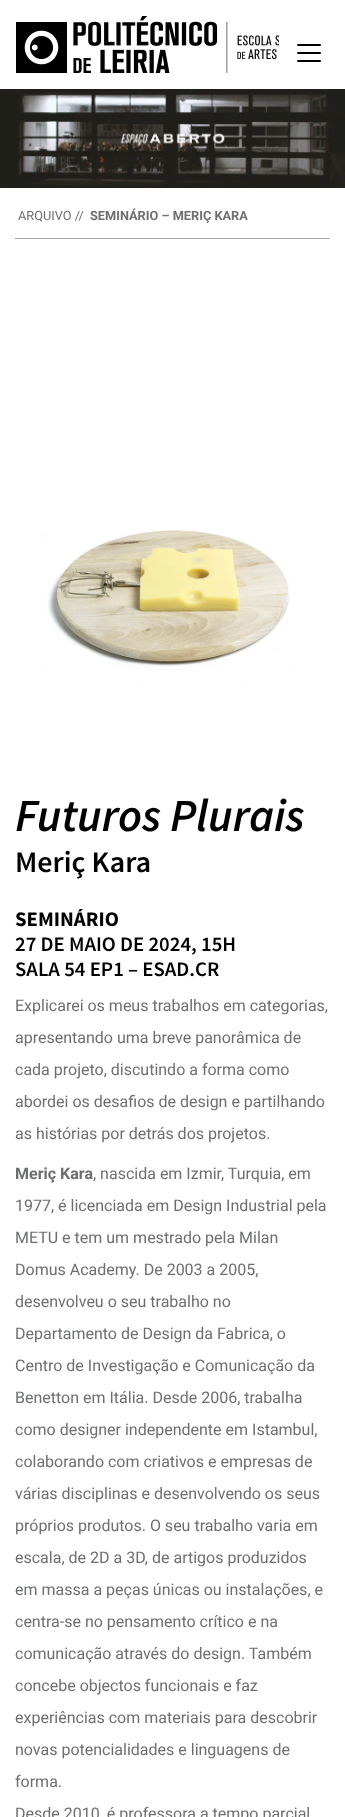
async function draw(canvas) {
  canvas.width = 345;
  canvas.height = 1817;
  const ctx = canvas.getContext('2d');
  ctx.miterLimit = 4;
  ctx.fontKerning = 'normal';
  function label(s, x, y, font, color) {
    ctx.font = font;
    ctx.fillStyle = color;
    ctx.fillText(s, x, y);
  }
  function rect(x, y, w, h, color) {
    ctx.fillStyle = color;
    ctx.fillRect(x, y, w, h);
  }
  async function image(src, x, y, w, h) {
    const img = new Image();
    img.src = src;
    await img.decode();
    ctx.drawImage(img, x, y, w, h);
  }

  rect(0, 0, 345, 1817, '#fff');
  await image('assets/img1.png', 16, 16, 263, 57);
  await image('assets/img2.png', 297, 44, 24, 18);
  await image('assets/img3.png', 0, 89, 345, 99);
  rect(15, 238, 315, 1, '#a7a9ac');
  label('ARQUIVO //', 18, 220, '12.75px Roboto', '#6d6e71');
  label('SEMINÁRIO – MERIÇ KARA', 90, 220, 'bold 12.75px Roboto', '#6d6e71');
  await image('assets/img4.png', 40, 530, 250, 156);
  label('Futuros Plurais', 15, 831, 'italic 600 46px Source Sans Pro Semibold', '#000');
  label('Meriç Kara', 15, 872, '600 30px Source Sans Pro Semibold', '#000');
  label('SEMINÁRIO', 15, 926, 'bold 20.75px Source Sans Pro', '#000');
  label('27 DE MAIO DE 2024, 15H', 15, 951, '600 20.75px Source Sans Pro Semibold', '#000');
  label('SALA 54 EP1 – ESAD.CR', 15, 976, '600 20.75px Source Sans Pro Semibold', '#000');
  label('Explicarei os meus trabalhos em categorias,', 15, 1011, '16px Roboto', '#6d6e71');
  label('apresentando uma breve panorâmica de', 15, 1043, '16px Roboto', '#6d6e71');
  label('cada projeto, discutindo a forma como', 15, 1075, '16px Roboto', '#6d6e71');
  label('abordei os desafios de design e partilhando', 15, 1107, '16px Roboto', '#6d6e71');
  label('as histórias por detrás dos projetos.', 15, 1139, '16px Roboto', '#6d6e71');
  label('Meriç Kara', 15, 1179, 'bold 16px Roboto', '#6d6e71');
  label(', nascida em Izmir, Turquia, em', 93, 1179, '16px Roboto', '#6d6e71');
  label('1977, é licenciada em Design Industrial pela', 15, 1211, '16px Roboto', '#6d6e71');
  label('METU e tem um mestrado pela Milan', 15, 1243, '16px Roboto', '#6d6e71');
  label('Domus Academy. De 2003 a 2005,', 15, 1275, '16px Roboto', '#6d6e71');
  label('desenvolveu o seu trabalho no', 15, 1307, '16px Roboto', '#6d6e71');
  label('Departamento de Design da Fabrica, o', 15, 1339, '16px Roboto', '#6d6e71');
  label('Centro de Investigação e Comunicação da', 15, 1371, '16px Roboto', '#6d6e71');
  label('Benetton em Itália. Desde 2006, trabalha', 15, 1403, '16px Roboto', '#6d6e71');
  label('como designer independente em Istambul,', 15, 1435, '16px Roboto', '#6d6e71');
  label('colaborando com criativos e empresas de', 15, 1467, '16px Roboto', '#6d6e71');
  label('várias disciplinas e desenvolvendo os seus', 15, 1499, '16px Roboto', '#6d6e71');
  label('próprios produtos. O seu trabalho varia em', 15, 1531, '16px Roboto', '#6d6e71');
  label('escala, de 2D a 3D, de artigos produzidos', 15, 1563, '16px Roboto', '#6d6e71');
  label('em massa a peças únicas ou instalações, e', 15, 1595, '16px Roboto', '#6d6e71');
  label('centra-se no pensamento crítico e na', 15, 1627, '16px Roboto', '#6d6e71');
  label('comunicação através do design. Também', 15, 1659, '16px Roboto', '#6d6e71');
  label('concebe objectos funcionais e faz', 15, 1691, '16px Roboto', '#6d6e71');
  label('experiências com materiais para descobrir', 15, 1723, '16px Roboto', '#6d6e71');
  label('novas potencialidades e linguagens de', 15, 1755, '16px Roboto', '#6d6e71');
  label('forma.', 15, 1787, '16px Roboto', '#6d6e71');
  label('Desde 2010, é professora a tempo parcial', 15, 1819, '16px Roboto', '#6d6e71');
}

draw(document.querySelector('canvas'));
